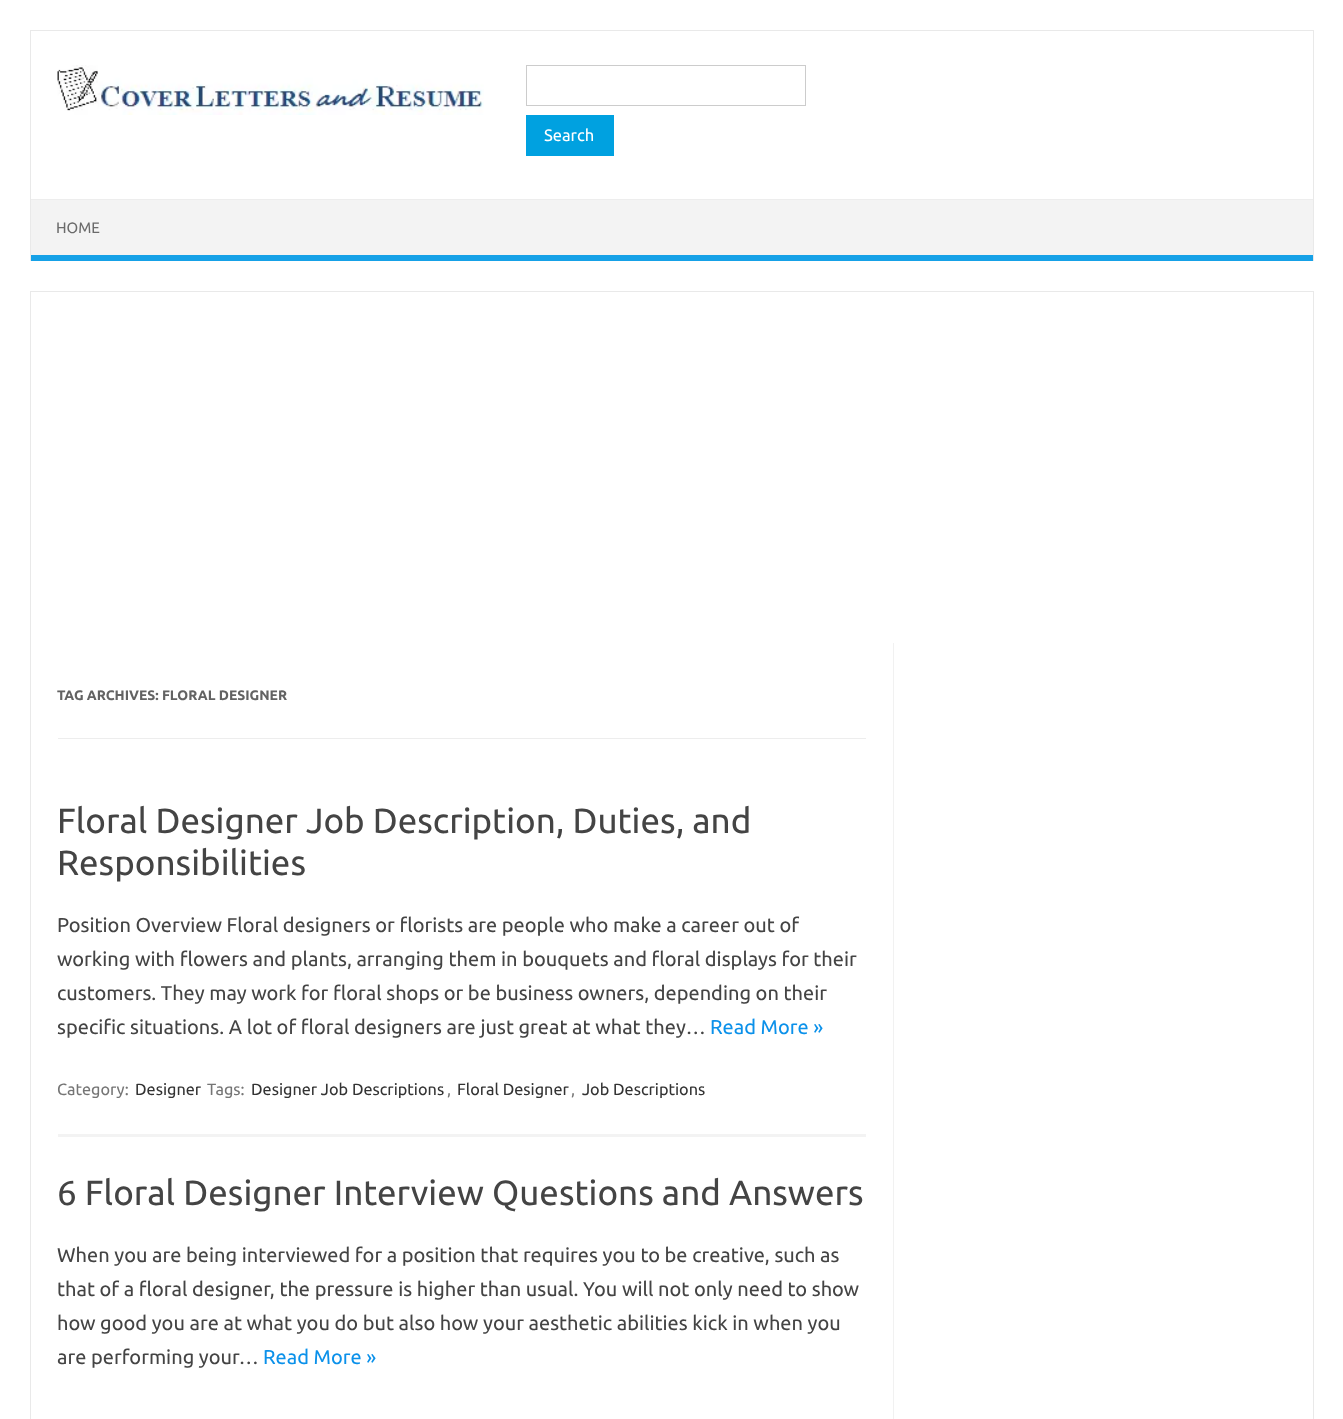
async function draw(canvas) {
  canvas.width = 1343;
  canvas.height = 1419;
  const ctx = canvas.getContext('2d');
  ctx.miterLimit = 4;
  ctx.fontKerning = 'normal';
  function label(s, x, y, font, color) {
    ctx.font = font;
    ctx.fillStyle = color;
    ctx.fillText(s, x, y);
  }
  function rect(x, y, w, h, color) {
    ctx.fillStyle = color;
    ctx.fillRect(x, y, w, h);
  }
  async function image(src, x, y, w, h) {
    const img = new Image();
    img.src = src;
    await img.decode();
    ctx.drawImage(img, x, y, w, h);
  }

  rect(0, 0, 1343, 1419, '#fff');
  rect(30, 30, 1284, 1, '#e9e9e9');
  rect(1313, 30, 1, 231, '#e9e9e9');
  rect(30, 30, 1, 231, '#e9e9e9');
  await image('assets/img1.png', 57, 65, 427, 50);
  ctx.strokeStyle = '#ccc';
  ctx.strokeRect(526.5, 65.5, 279, 40);
  rect(526, 115, 88, 41, '#00a1e0');
  label('Search', 544, 141, '16.5px Ubuntu', '#fff');
  rect(31, 200, 1282, 55, '#f3f3f3');
  rect(31, 199, 1282, 1, '#ededed');
  rect(31, 255, 1282, 6, '#16a1e7');
  label('HOME', 56, 233, '15px Ubuntu', '#6a6a6a');
  ctx.strokeStyle = '#e9e9e9';
  ctx.strokeRect(30.5, 291.5, 1283, 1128);
  rect(893, 643, 1, 776, '#f1f1f1');
  rect(58, 738, 808, 1, '#ededed');
  label('TAG ARCHIVES: FLORAL DESIGNER', 57, 700, 'bold 13.75px Ubuntu', '#636363');
  rect(58, 1134, 808, 3, '#f3f3f3');
  label('Floral Designer Job Description, Duties, and', 57, 833, '35px Ubuntu', '#444');
  label('Responsibilities', 57, 875, '35px Ubuntu', '#444');
  label('Position Overview Floral designers or florists are people who make a career out of', 57, 932, '20px Ubuntu', '#444');
  label('working with flowers and plants, arranging them in bouquets and floral displays for their', 57, 966, '20px Ubuntu', '#444');
  label('customers. They may work for floral shops or be business owners, depending on their', 57, 1000, '20px Ubuntu', '#444');
  label('specific situations. A lot of floral designers are just great at what they…', 57, 1034, '20px Ubuntu', '#444');
  label('Read More »', 710, 1034, '20px Ubuntu', '#0b91ea');
  label('Category:', 57, 1095, '16.25px Ubuntu', '#757575');
  label('Designer', 135, 1095, '16.25px Ubuntu', '#333');
  label('Tags:', 207, 1095, '16.25px Ubuntu', '#757575');
  label('Designer Job Descriptions', 251, 1095, '16.25px Ubuntu', '#333');
  label(',', 447, 1095, '16.25px Ubuntu', '#757575');
  label('Floral Designer', 457, 1095, '16.25px Ubuntu', '#333');
  label(',', 571, 1095, '16.25px Ubuntu', '#757575');
  label('Job Descriptions', 582, 1095, '16.25px Ubuntu', '#333');
  label('6 Floral Designer Interview Questions and Answers', 57, 1205, '35px Ubuntu', '#444');
  label('When you are being interviewed for a position that requires you to be creative, such as', 57, 1262, '20px Ubuntu', '#444');
  label('that of a floral designer, the pressure is higher than usual. You will not only need to show', 57, 1296, '20px Ubuntu', '#444');
  label('how good you are at what you do but also how your aesthetic abilities kick in when you', 57, 1330, '20px Ubuntu', '#444');
  label('are performing your…', 57, 1364, '20px Ubuntu', '#444');
  label('Read More »', 263, 1364, '20px Ubuntu', '#0b91ea');
}

draw(document.querySelector('canvas'));
